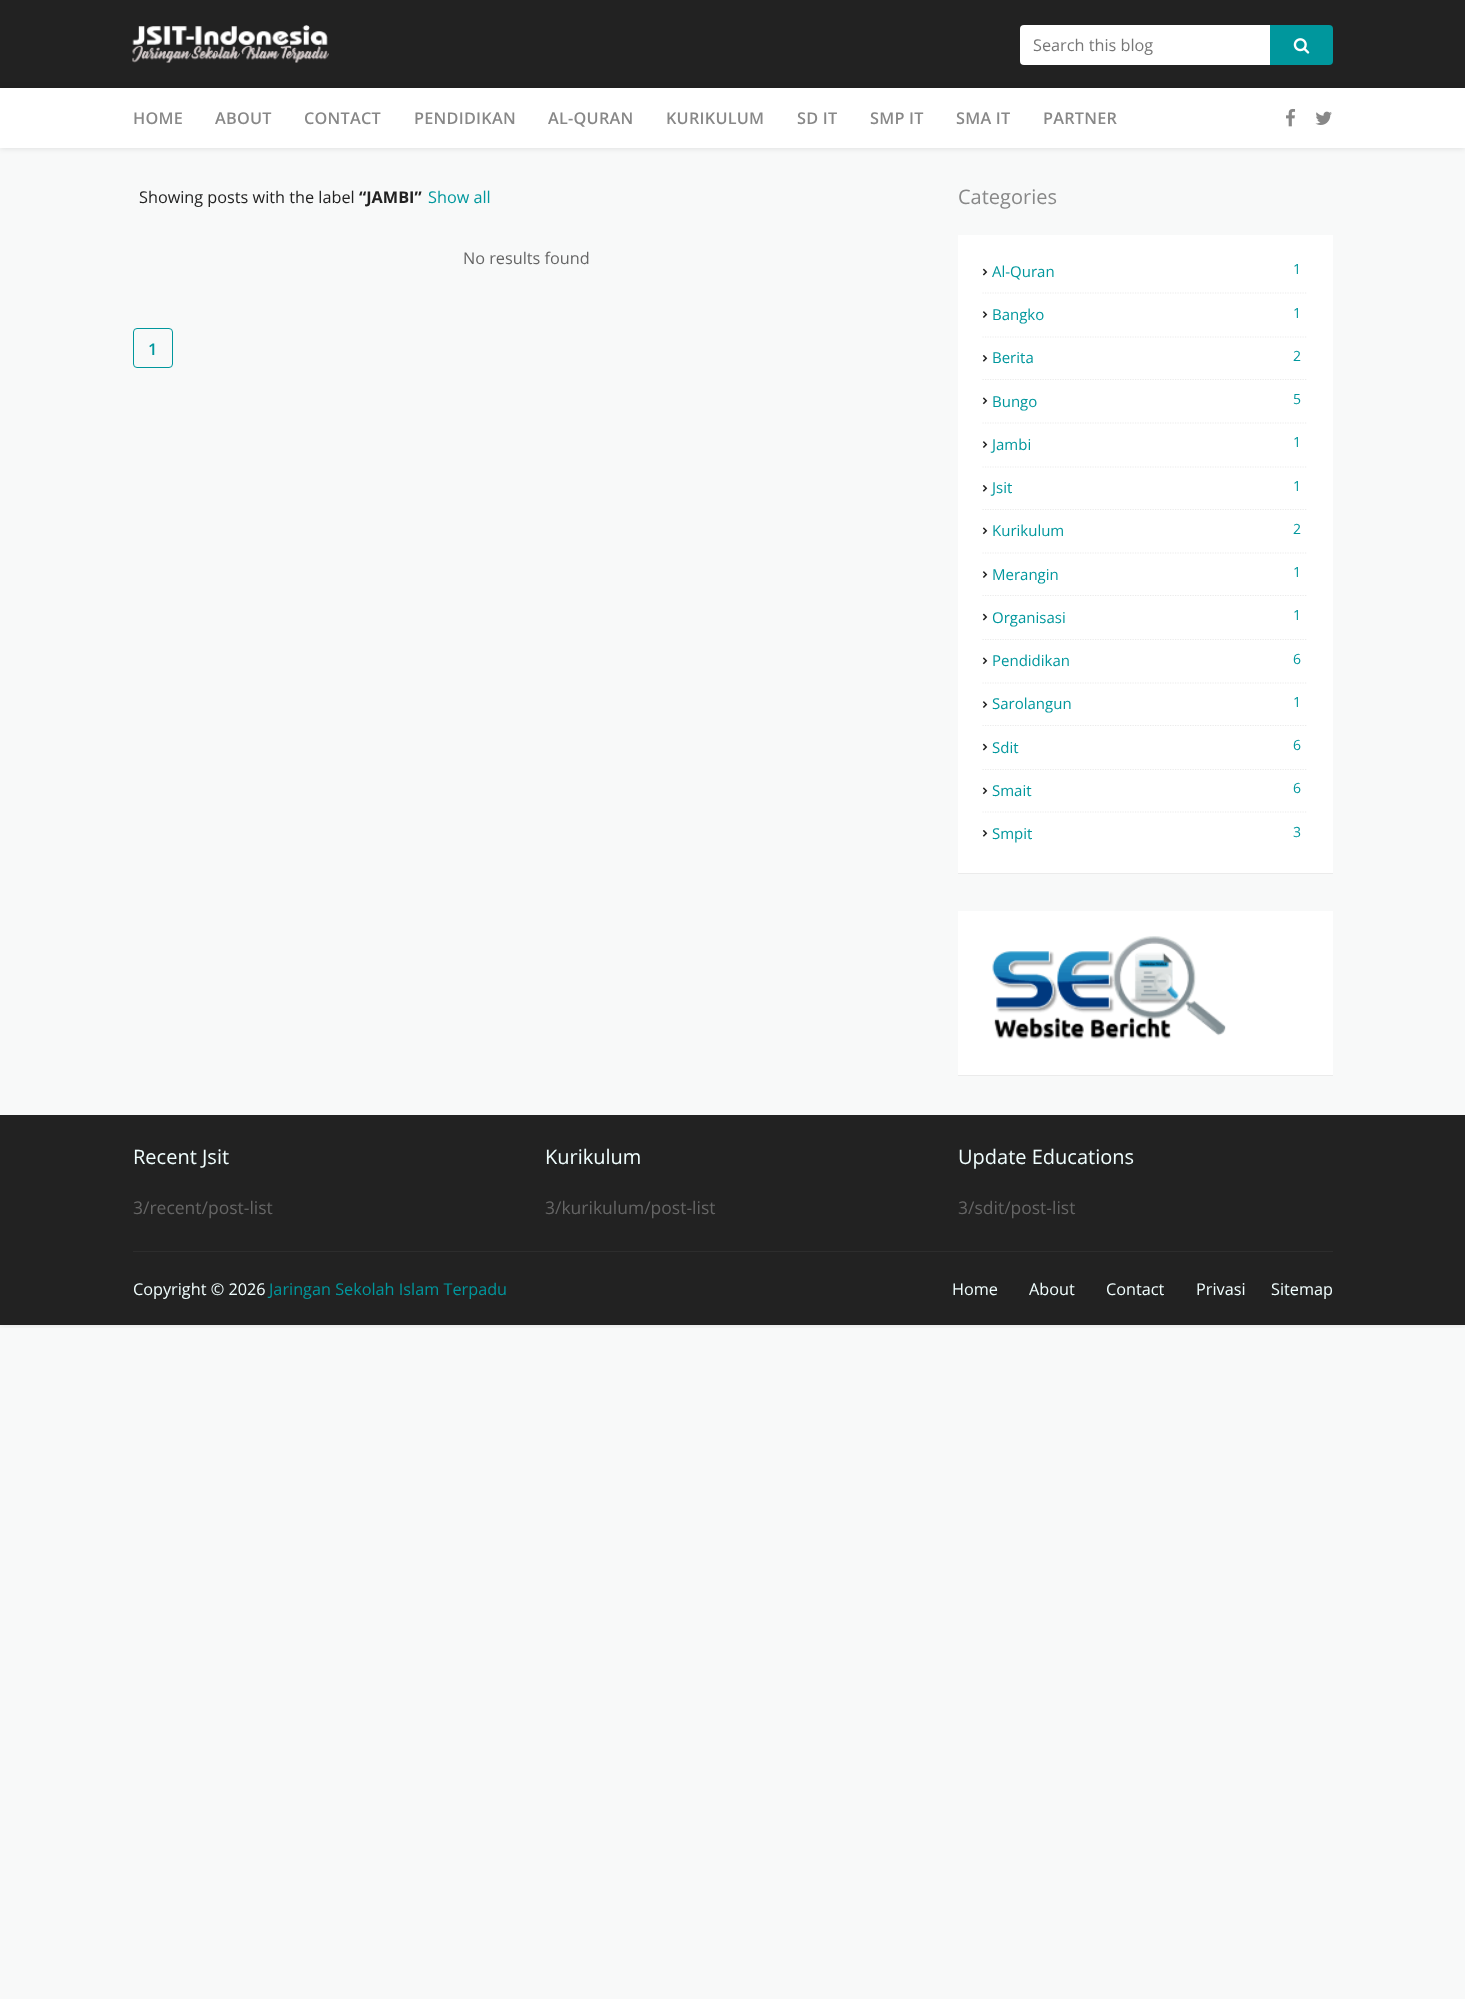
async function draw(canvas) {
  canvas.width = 1465;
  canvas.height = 1999;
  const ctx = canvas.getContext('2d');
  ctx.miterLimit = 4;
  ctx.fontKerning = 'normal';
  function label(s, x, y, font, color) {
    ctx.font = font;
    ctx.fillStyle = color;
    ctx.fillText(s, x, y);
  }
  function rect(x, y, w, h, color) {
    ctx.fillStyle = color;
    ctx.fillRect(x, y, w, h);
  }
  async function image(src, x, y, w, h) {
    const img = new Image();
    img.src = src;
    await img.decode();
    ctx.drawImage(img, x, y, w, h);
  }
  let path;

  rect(0, 0, 1465, 1999, '#f8f9f9');
  ctx.save();
  ctx.beginPath();
  ctx.rect(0, 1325, 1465, 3);
  ctx.clip();
  ctx.fillStyle = '#0000001a';
  ctx.filter = 'blur(3px)';
  ctx.beginPath();
  ctx.rect(0, 0, 1465, 1325);
  ctx.fill();
  ctx.filter = 'none';
  ctx.restore();
  rect(0, 0, 1465, 88, '#222');
  await image('assets/img1.png', 132, 25, 197, 38);
  ctx.fillStyle = '#fff';
  ctx.beginPath();
  ctx.roundRect(1020, 25, 250, 40, [4, 0, 0, 4]);
  ctx.fill();
  label('Search this blog', 1033, 51, '16.25px Open Sans', '#777');
  ctx.fillStyle = '#00979d';
  ctx.beginPath();
  ctx.roundRect(1270, 25, 63, 40, [0, 4, 4, 0]);
  ctx.fill();
  await image('assets/img2.png', 1293, 38, 17, 16);
  ctx.fillStyle = '#0000001f';
  ctx.filter = 'blur(3px)';
  ctx.beginPath();
  ctx.rect(0, 88, 1465, 60);
  ctx.fill();
  ctx.filter = 'none';
  rect(0, 88, 1465, 60, '#fff');
  ctx.letterSpacing = '0.25px';
  label('HOME', 133, 124, '600 16.25px Open Sans', '#888');
  label('ABOUT', 215, 124, '600 16.25px Open Sans', '#888');
  label('CONTACT', 304, 124, '600 16.25px Open Sans', '#888');
  label('PENDIDIKAN', 414, 124, '600 16.25px Open Sans', '#888');
  label('AL-QURAN', 548, 124, '600 16.25px Open Sans', '#888');
  label('KURIKULUM', 666, 124, '600 16.25px Open Sans', '#888');
  label('SD IT', 797, 124, '600 16.25px Open Sans', '#888');
  label('SMP IT', 870, 124, '600 16.25px Open Sans', '#888');
  label('SMA IT', 956, 124, '600 16.25px Open Sans', '#888');
  label('PARTNER', 1043, 124, '600 16.25px Open Sans', '#888');
  await image('assets/img3.png', 1286, 108, 10, 19);
  await image('assets/img4.png', 1315, 111, 17, 14);
  ctx.letterSpacing = '0px';
  label('Showing posts with the label', 139, 203, '16.25px Open Sans', '#222');
  label('“JAMBI”', 359, 203, 'bold 16.25px Open Sans', '#222');
  label('Show all', 428, 203, '16.25px Open Sans', '#00979d');
  label('No results found', 463, 264, '16.25px Open Sans', '#656565');
  ctx.beginPath();
  ctx.roundRect(133.5, 328.5, 39, 39, 3.5);
  ctx.strokeStyle = '#00979d';
  ctx.stroke();
  label('1', 148, 355, '600 16.25px Open Sans', '#00979d');
  label('Categories', 958, 204, '20px Open Sans', '#888');
  rect(958, 235, 375, 638, '#fff');
  rect(958, 873, 375, 1, '#ebebeb');
  await image('assets/img5.png', 982, 268, 6, 8);
  label('Al-Quran', 992, 277, '15px Open Sans', '#00979d');
  label('1', 1293, 274, '14px Open Sans', '#00979d');
  path = new Path2D('M982.5 293H1307.5');
  ctx.strokeStyle = '#ebebeb';
  ctx.lineWidth = 1.2;
  ctx.setLineDash([1.25, 1.25]);
  ctx.stroke(path);
  await image('assets/img6.png', 982, 311, 6, 7);
  label('Bangko', 992, 320, '15px Open Sans', '#00979d');
  label('1', 1293, 318, '14px Open Sans', '#00979d');
  path = new Path2D('M982.5 337H1307.5');
  ctx.stroke(path);
  await image('assets/img7.png', 982, 355, 6, 7);
  label('Berita', 992, 363, '15px Open Sans', '#00979d');
  label('2', 1293, 361, '14px Open Sans', '#00979d');
  path = new Path2D('M982.5 379.5H1307.5');
  ctx.stroke(path);
  await image('assets/img8.png', 982, 397, 6, 8);
  label('Bungo', 992, 407, '15px Open Sans', '#00979d');
  label('5', 1293, 404, '14px Open Sans', '#00979d');
  path = new Path2D('M982.5 423H1307.5');
  ctx.stroke(path);
  await image('assets/img6.png', 982, 441, 6, 7);
  label('Jambi', 992, 450, '15px Open Sans', '#00979d');
  label('1', 1293, 447, '14px Open Sans', '#00979d');
  path = new Path2D('M982.5 467H1307.5');
  ctx.stroke(path);
  await image('assets/img7.png', 982, 485, 6, 7);
  label('Jsit', 992, 493, '15px Open Sans', '#00979d');
  label('1', 1293, 491, '14px Open Sans', '#00979d');
  path = new Path2D('M982.5 509.5H1307.5');
  ctx.stroke(path);
  await image('assets/img8.png', 982, 527, 6, 8);
  label('Kurikulum', 992, 536, '15px Open Sans', '#00979d');
  label('2', 1293, 534, '14px Open Sans', '#00979d');
  path = new Path2D('M982.5 553H1307.5');
  ctx.stroke(path);
  await image('assets/img6.png', 982, 571, 6, 7);
  label('Merangin', 992, 580, '15px Open Sans', '#00979d');
  label('1', 1293, 577, '14px Open Sans', '#00979d');
  path = new Path2D('M982.5 595.5H1307.5');
  ctx.stroke(path);
  await image('assets/img5.png', 982, 613, 6, 8);
  label('Organisasi', 992, 623, '15px Open Sans', '#00979d');
  label('1', 1293, 620, '14px Open Sans', '#00979d');
  path = new Path2D('M982.5 639.5H1307.5');
  ctx.stroke(path);
  await image('assets/img8.png', 982, 657, 6, 8);
  label('Pendidikan', 992, 666, '15px Open Sans', '#00979d');
  label('6', 1293, 664, '14px Open Sans', '#00979d');
  path = new Path2D('M982.5 683H1307.5');
  ctx.stroke(path);
  await image('assets/img6.png', 982, 701, 6, 7);
  label('Sarolangun', 992, 709, '15px Open Sans', '#00979d');
  label('1', 1293, 707, '14px Open Sans', '#00979d');
  path = new Path2D('M982.5 725.5H1307.5');
  ctx.stroke(path);
  await image('assets/img5.png', 982, 743, 6, 8);
  label('Sdit', 992, 753, '15px Open Sans', '#00979d');
  label('6', 1293, 750, '14px Open Sans', '#00979d');
  path = new Path2D('M982.5 769.5H1307.5');
  ctx.stroke(path);
  await image('assets/img8.png', 982, 787, 6, 8);
  label('Smait', 992, 796, '15px Open Sans', '#00979d');
  label('6', 1293, 793, '14px Open Sans', '#00979d');
  path = new Path2D('M982.5 812H1307.5');
  ctx.stroke(path);
  await image('assets/img7.png', 982, 830, 6, 7);
  label('Smpit', 992, 839, '15px Open Sans', '#00979d');
  label('3', 1293, 837, '14px Open Sans', '#00979d');
  rect(958, 911, 375, 164, '#fff');
  rect(958, 1075, 375, 1, '#ebebeb');
  await image('assets/img9.png', 992, 936, 234, 103);
  rect(0, 1115, 1465, 210, '#222');
  label('Recent Jsit', 133, 1164, '20px Open Sans', '#f1ffff');
  label('3/recent/post-list', 133, 1214, '17.5px Open Sans', '#656565');
  label('Kurikulum', 545, 1164, '20px Open Sans', '#f1ffff');
  label('3/kurikulum/post-list', 545, 1214, '17.5px Open Sans', '#656565');
  label('Update Educations', 958, 1164, '20px Open Sans', '#f1ffff');
  label('3/sdit/post-list', 958, 1214, '17.5px Open Sans', '#656565');
  rect(133, 1251, 1200, 1, '#2d2d2d');
  label('Copyright © 2026', 133, 1295, '16.25px Open Sans', '#f1ffff');
  label('Jaringan Sekolah Islam Terpadu', 269, 1295, '16.25px Open Sans', '#00979d');
  label('Home', 952, 1295, '16.25px Open Sans', '#f1ffff');
  label('About', 1029, 1295, '16.25px Open Sans', '#f1ffff');
  label('Contact', 1106, 1295, '16.25px Open Sans', '#f1ffff');
  label('Privasi', 1196, 1295, '16.25px Open Sans', '#f1ffff');
  label('Sitemap', 1271, 1295, '16.25px Open Sans', '#f1ffff');
}

draw(document.querySelector('canvas'));
